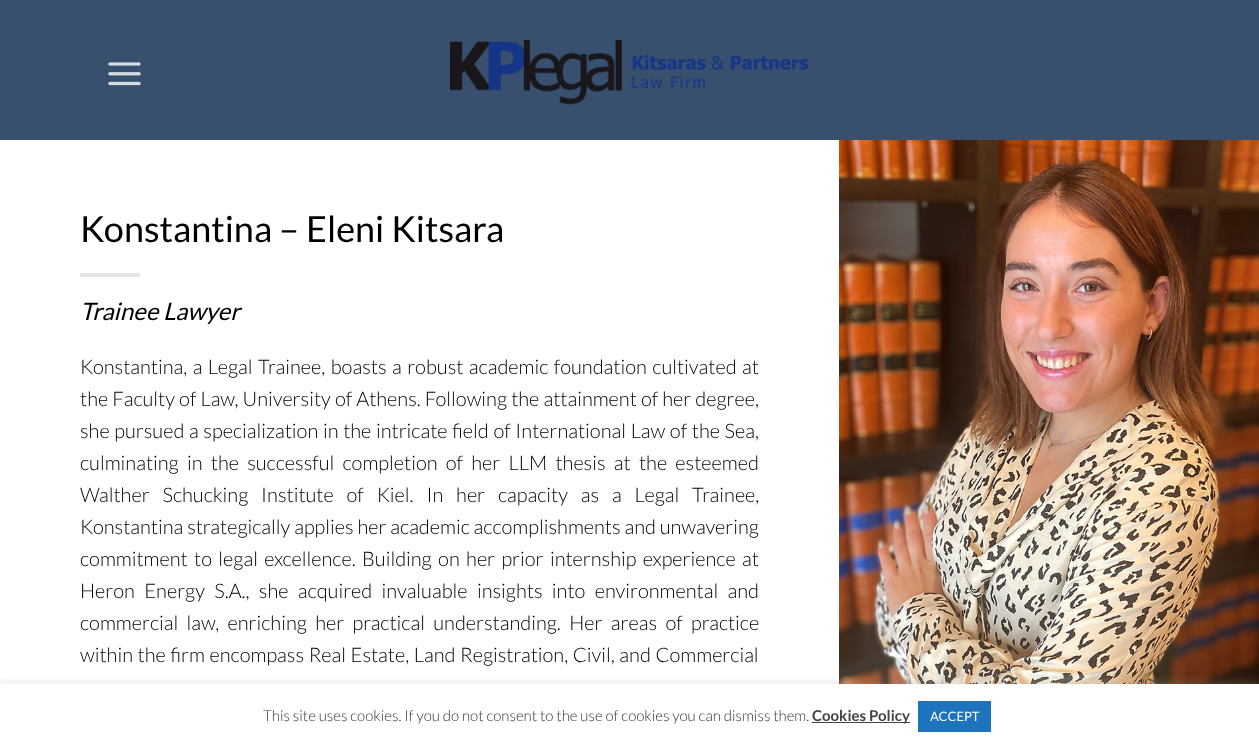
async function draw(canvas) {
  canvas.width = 1259;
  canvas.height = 749;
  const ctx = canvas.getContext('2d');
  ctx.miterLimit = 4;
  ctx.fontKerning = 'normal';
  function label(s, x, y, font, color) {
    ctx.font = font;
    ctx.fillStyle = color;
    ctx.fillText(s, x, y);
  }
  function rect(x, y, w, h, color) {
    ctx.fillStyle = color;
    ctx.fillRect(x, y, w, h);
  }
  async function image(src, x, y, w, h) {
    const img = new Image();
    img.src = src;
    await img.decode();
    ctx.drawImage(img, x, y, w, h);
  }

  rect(0, 0, 1259, 749, '#fff');
  rect(0, 0, 1259, 140, '#38506e');
  await image('assets/img1.png', 108, 62, 33, 24);
  await image('assets/img2.png', 450, 40, 359, 65);
  label('Konstantina – Eleni Kitsara', 80, 242, '36px Lato', '#000');
  rect(80, 273, 60, 4, '#e6e6e6');
  label('Trainee Lawyer', 80, 320, 'italic 24px Lato', '#000');
  ctx.wordSpacing = '1.6px';
  label('Konstantina, a Legal Trainee, boasts a robust academic foundation cultivated at', 80, 374, '300 20px Lato', '#000');
  ctx.wordSpacing = '0.25px';
  label('the Faculty of Law, University of Athens. Following the attainment of her degree,', 80, 406, '300 20px Lato', '#000');
  ctx.wordSpacing = '0.8px';
  label('she pursued a specialization in the intricate field of International Law of the Sea,', 80, 438, '300 20px Lato', '#000');
  ctx.wordSpacing = '4.4px';
  label('culminating in the successful completion of her LLM thesis at the esteemed', 80, 470, '300 20px Lato', '#000');
  ctx.wordSpacing = '9px';
  label('Walther Schucking Institute of Kiel. In her capacity as a Legal Trainee,', 80, 502, '300 20px Lato', '#000');
  ctx.wordSpacing = '0px';
  label('Konstantina strategically applies her academic accomplishments and unwavering', 80, 534, '300 20px Lato', '#000');
  ctx.wordSpacing = '2.5px';
  label('commitment to legal excellence. Building on her prior internship experience at', 80, 566, '300 20px Lato', '#000');
  ctx.wordSpacing = '5.5px';
  label('Heron Energy S.A., she acquired invaluable insights into environmental and', 80, 598, '300 20px Lato', '#000');
  ctx.wordSpacing = '4.5px';
  label('commercial law, enriching her practical understanding. Her areas of practice', 80, 630, '300 20px Lato', '#000');
  ctx.wordSpacing = '0.75px';
  label('within the firm encompass Real Estate, Land Registration, Civil, and Commercial', 80, 662, '300 20px Lato', '#000');
  await image('assets/img3.png', 839, 140, 420, 544);
  ctx.fillStyle = '#acabab4d';
  ctx.filter = 'blur(5px)';
  ctx.beginPath();
  ctx.rect(0, 683, 1259, 65);
  ctx.fill();
  ctx.filter = 'none';
  rect(0, 684, 1259, 65, '#fff');
  ctx.wordSpacing = '0px';
  label('This site uses cookies. If you do not consent to the use of cookies you can dismiss them.', 263, 721, '300 15px Lato', '#333');
  rect(812, 722, 98, 1, '#444');
  label('Cookies Policy', 812, 721, 'bold 15px Lato', '#444');
  rect(918, 701, 73, 31, '#1e73be');
  label('ACCEPT', 930, 721, '13px Lato', '#fff');
}

draw(document.querySelector('canvas'));
